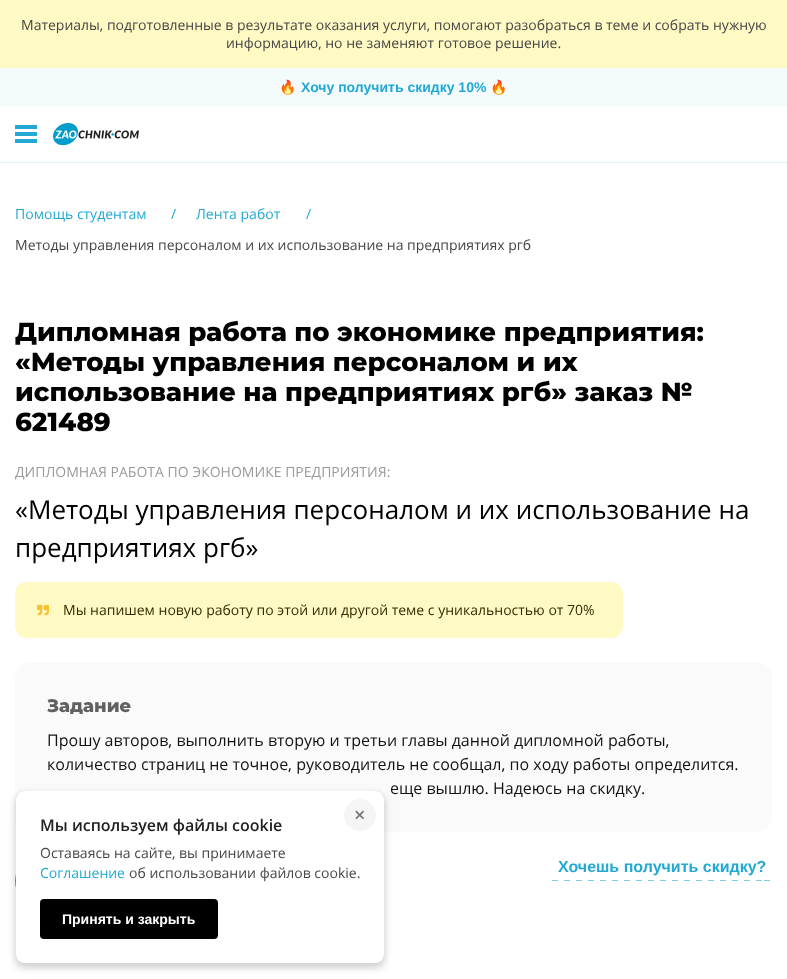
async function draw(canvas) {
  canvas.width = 787;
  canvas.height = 979;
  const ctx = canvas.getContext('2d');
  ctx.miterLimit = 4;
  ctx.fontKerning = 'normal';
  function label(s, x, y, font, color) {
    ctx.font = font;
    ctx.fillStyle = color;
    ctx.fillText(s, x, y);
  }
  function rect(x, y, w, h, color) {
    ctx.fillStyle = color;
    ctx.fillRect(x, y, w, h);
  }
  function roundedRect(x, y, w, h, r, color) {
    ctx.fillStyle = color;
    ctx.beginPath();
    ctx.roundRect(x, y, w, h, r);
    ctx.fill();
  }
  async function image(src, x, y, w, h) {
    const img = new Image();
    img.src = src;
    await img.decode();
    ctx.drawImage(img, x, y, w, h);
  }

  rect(0, 0, 787, 979, '#fff');
  rect(0, 162, 787, 1, '#def2f8');
  rect(0, 0, 787, 68, '#fff9c4');
  label('Материалы, подготовленные в результате оказания услуги, помогают разобраться в теме и собрать нужную', 21, 30, '14px Open Sans', '#464646');
  label('информацию, но не заменяют готовое решение.', 226, 48, '14px Open Sans', '#464646');
  rect(0, 68, 787, 38, '#f4fbfd');
  label('🔥', 279, 92, 'bold 14px Noto Color Emoji', '#22a9d3');
  label('Хочу получить скидку 10%', 301, 92, 'bold 14px Liberation Sans', '#22a9d3');
  label('🔥', 490, 92, 'bold 14px Noto Color Emoji', '#22a9d3');
  rect(15, 125, 22, 18, '#22a9d3');
  rect(15, 129, 22, 3, '#fff');
  rect(15, 136, 22, 3, '#fff');
  await image('assets/img1.png', 53, 123, 86, 22);
  label('Помощь студентам', 15, 219, '14px Open Sans', '#22a9d3');
  label('/', 171, 219, '14px Open Sans', '#22a9d3');
  label('Лента работ', 196, 219, '14px Open Sans', '#22a9d3');
  label('/', 306, 219, '14px Open Sans', '#22a9d3');
  label('Методы управления персоналом и их использование на предприятиях ргб', 15, 250, '14px Open Sans', '#464646');
  label('Дипломная работа по экономике предприятия:', 15, 341, '800 26px Montserrat', '#000');
  label('«Методы управления персоналом и их', 15, 371, '800 26px Montserrat', '#000');
  label('использование на предприятиях ргб» заказ №', 15, 401, '800 26px Montserrat', '#000');
  label('621489', 15, 431, '800 26px Montserrat', '#000');
  label('ДИПЛОМНАЯ РАБОТА ПО ЭКОНОМИКЕ ПРЕДПРИЯТИЯ:', 15, 477, '14px Open Sans', '#9a9a9a');
  label('«Методы управления персоналом и их использование на', 15, 519, '26px Open Sans', '#000');
  label('предприятиях ргб»', 15, 557, '26px Open Sans', '#000');
  roundedRect(15, 582, 608, 56, 12, '#fff9c4');
  await image('assets/img2.png', 37, 604, 12, 12);
  label('Мы напишем новую работу по этой или другой теме с уникальностью от 70%', 63, 615, '14px Open Sans', '#342d00');
  roundedRect(15, 662, 757, 170, 16, '#fafafa');
  label('Задание', 47, 712, '800 18px Montserrat', '#616161');
  label('Прошу авторов, выполнить вторую и третьи главы данной дипломной работы,', 47, 746, '16px Open Sans', '#121212');
  label('количество страниц не точное, руководитель не сообщал, по ходу работы определится.', 47, 770, '16px Open Sans', '#121212');
  label('еще вышлю. Надеюсь на скидку.', 390, 794, '16px Open Sans', '#121212');
  roundedRect(15, 856, 251, 50, 25, '#22a9d3');
  label('Хочешь получить скидку?', 558, 872, 'bold 16px Liberation Sans', '#22a9d3');
  await image('assets/img3.png', 552, 880, 218, 1);
  ctx.fillStyle = '#0000003d';
  ctx.filter = 'blur(0.5px)';
  ctx.beginPath();
  ctx.roundRect(16, 791, 368, 172, 8);
  ctx.fill();
  ctx.filter = 'none';
  ctx.fillStyle = '#0000001f';
  ctx.filter = 'blur(3px)';
  ctx.beginPath();
  ctx.roundRect(15, 794, 370, 174, 9);
  ctx.fill();
  ctx.filter = 'none';
  ctx.fillStyle = '#00000014';
  ctx.filter = 'blur(6px)';
  ctx.beginPath();
  ctx.roundRect(16, 795, 368, 172, 8);
  ctx.fill();
  ctx.filter = 'none';
  roundedRect(16, 791, 368, 172, 8, '#fff');
  ctx.fillStyle = '#f5f5f5';
  ctx.beginPath();
  ctx.arc(360, 815, 16, 0, 2 * Math.PI);
  ctx.fill();
  label('×', 354, 822, '600 20px Open Sans', '#757575');
  label('Мы используем файлы cookie', 40, 831, '600 16px Open Sans', '#212121');
  label('Оставаясь на сайте, вы принимаете', 40, 858, '14px Open Sans', '#464646');
  label('Соглашение', 40, 878, '14px Open Sans', '#22a9d3');
  label('об использовании файлов cookie.', 129, 878, '14px Open Sans', '#464646');
  roundedRect(40, 899, 178, 40, 4, '#000');
  label('Принять и закрыть', 62, 924, 'bold 14px Liberation Sans', '#fff');
}

draw(document.querySelector('canvas'));
